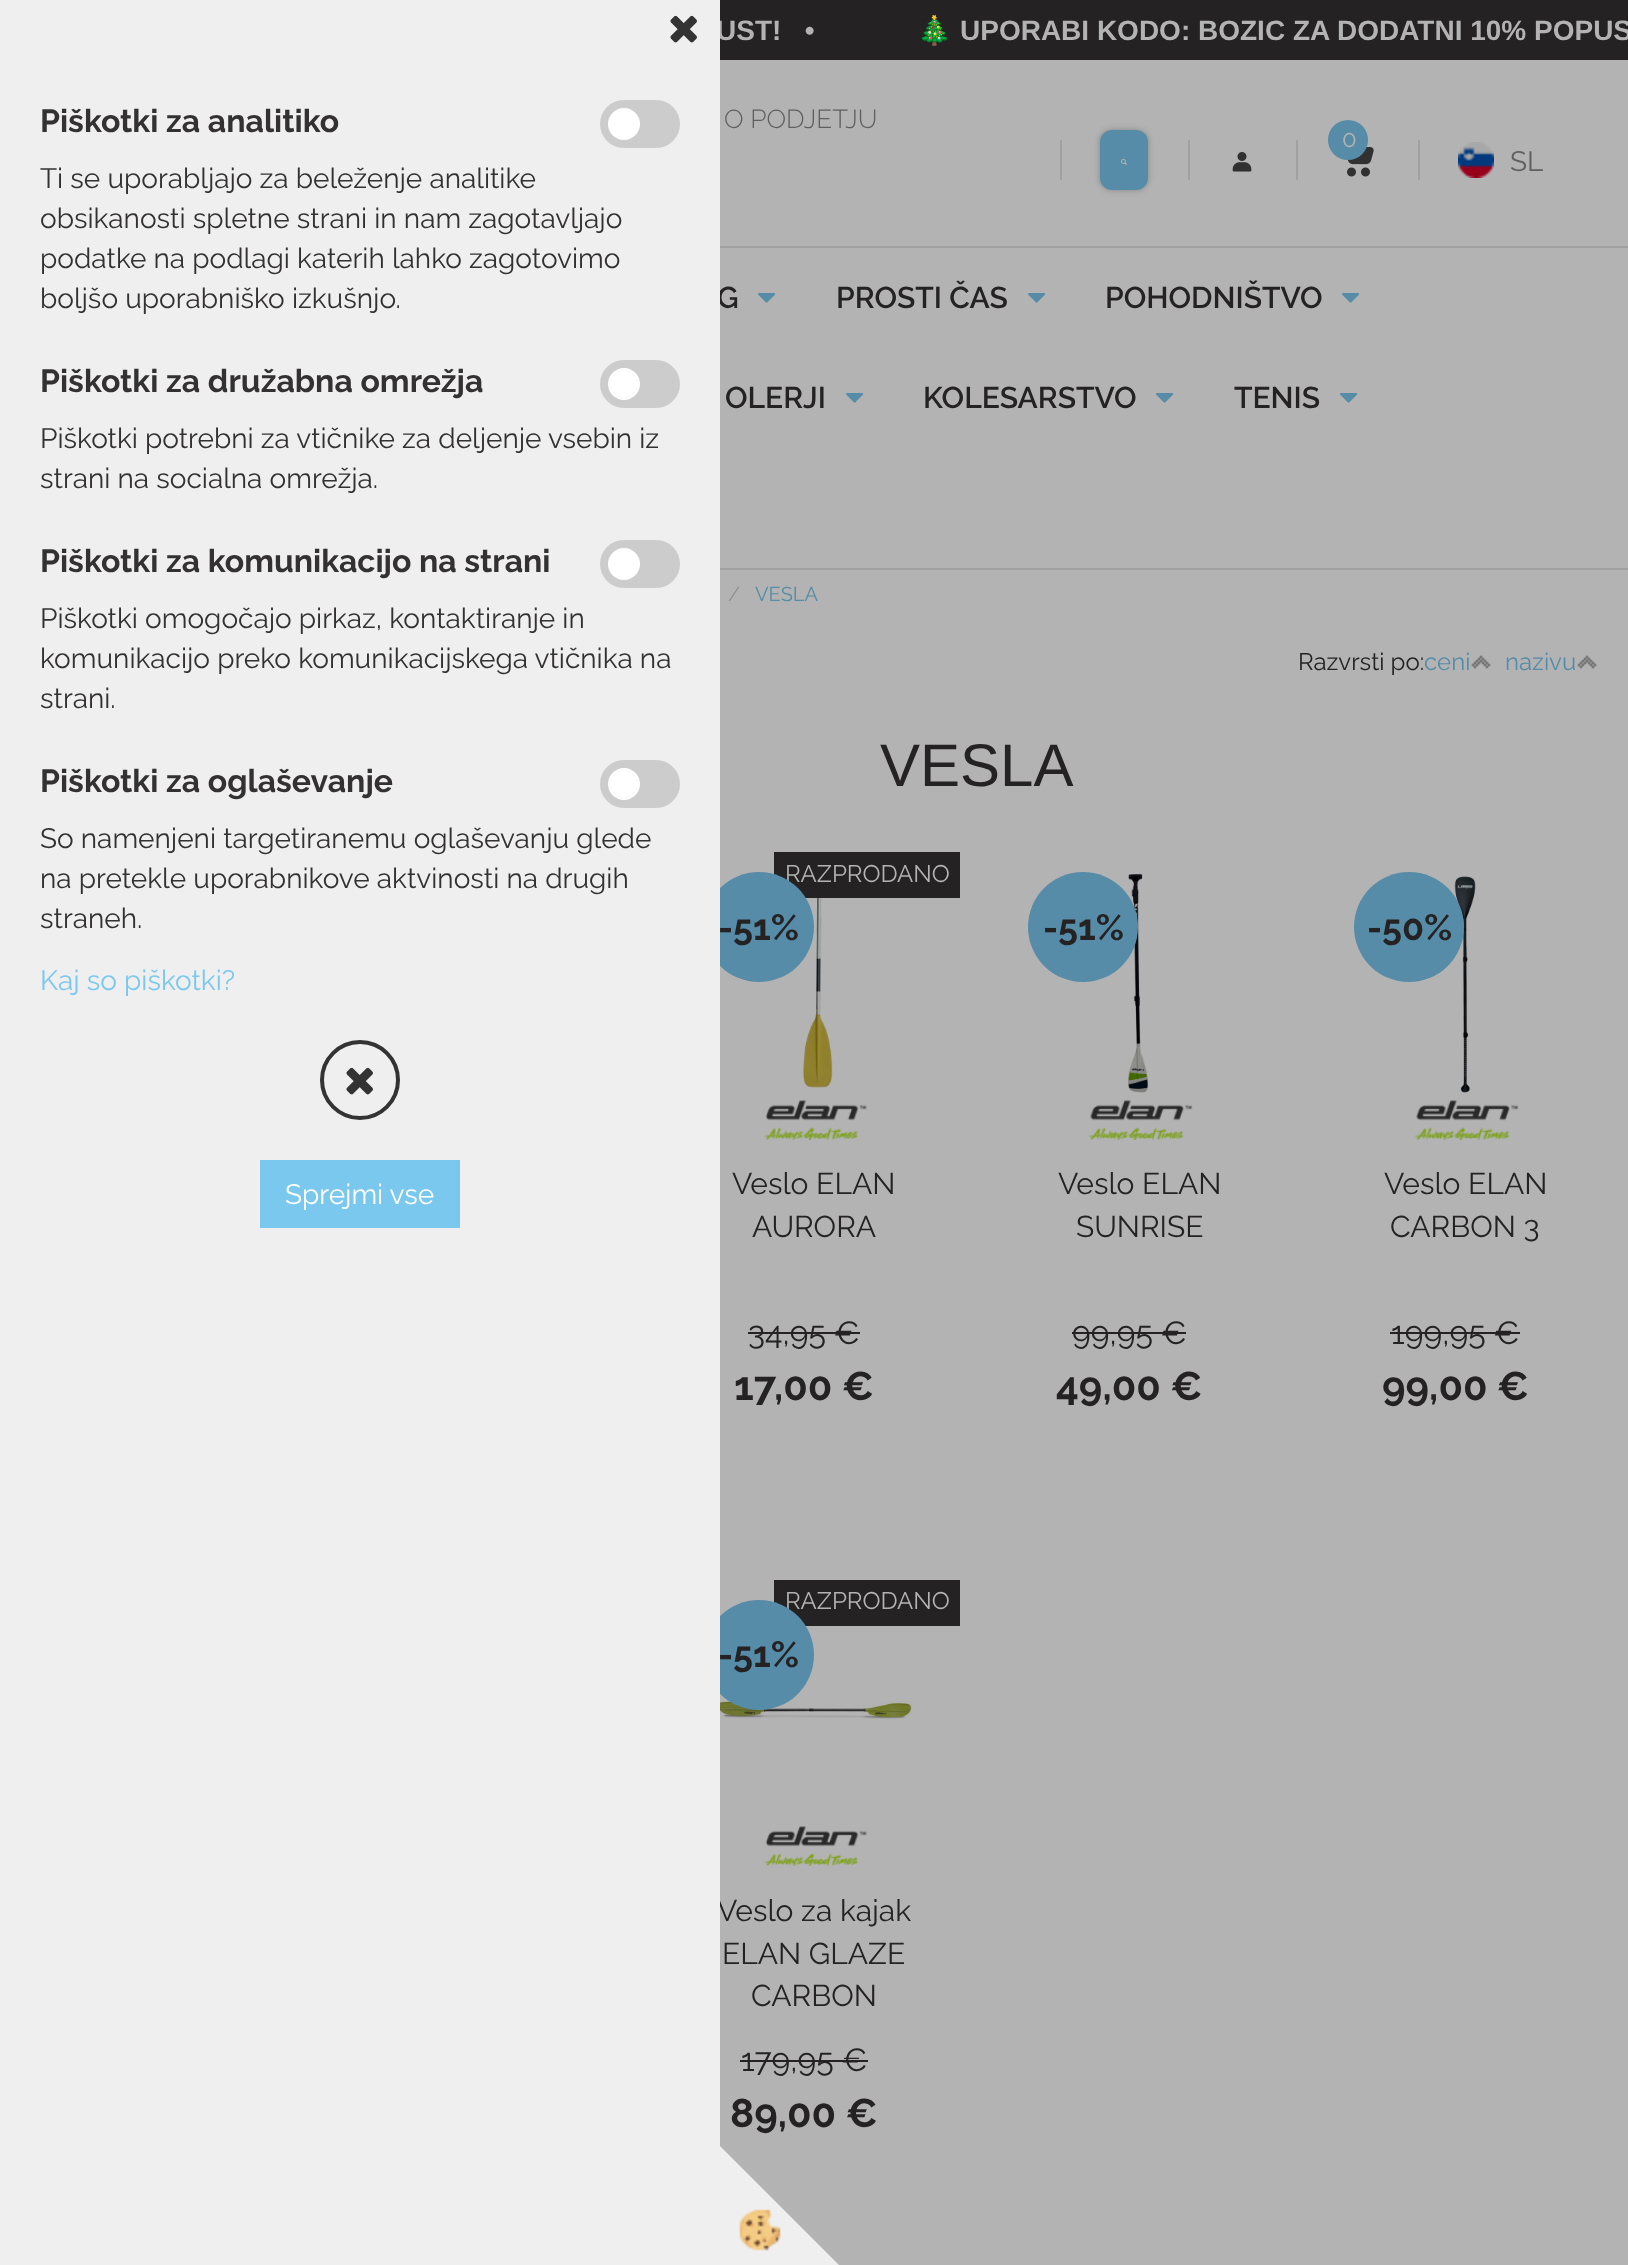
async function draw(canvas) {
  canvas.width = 1628;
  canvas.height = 2265;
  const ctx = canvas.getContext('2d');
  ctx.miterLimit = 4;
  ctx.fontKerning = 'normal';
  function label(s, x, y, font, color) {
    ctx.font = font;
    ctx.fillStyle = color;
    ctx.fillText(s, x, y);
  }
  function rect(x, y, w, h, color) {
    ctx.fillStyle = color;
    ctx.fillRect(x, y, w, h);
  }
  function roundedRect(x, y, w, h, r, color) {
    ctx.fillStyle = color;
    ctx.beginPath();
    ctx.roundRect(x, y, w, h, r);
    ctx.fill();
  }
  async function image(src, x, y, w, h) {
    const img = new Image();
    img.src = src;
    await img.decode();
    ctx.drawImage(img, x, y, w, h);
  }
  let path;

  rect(0, 0, 1628, 2265, '#b3b3b3');
  rect(720, 0, 908, 60, '#242223');
  label('UST!   •', 716, 40, 'bold 28px Liberation Sans', '#b3b3b3');
  label('G', 717, 308, '600 30px Raleway', '#242223');
  rect(774, 852, 186, 46, '#242223');
  label('RAZPRODANO', 785, 882, '24px Raleway', '#b3b3b3');
  await image('assets/img9.png', 803, 898, 30, 190);
  ctx.fillStyle = '#568ca7';
  ctx.beginPath();
  ctx.arc(759, 927, 55, 0, 2 * Math.PI);
  ctx.fill();
  label('-51%', 718, 940, 'bold 36px Raleway', '#242223');
  rect(774, 1580, 186, 46, '#242223');
  label('RAZPRODANO', 785, 1609, '24px Raleway', '#b3b3b3');
  await image('assets/img15.png', 720, 1701, 192, 18);
  ctx.fillStyle = '#568ca7';
  ctx.beginPath();
  ctx.arc(759, 1655, 55, 0, 2 * Math.PI);
  ctx.fill();
  label('-51%', 718, 1667, 'bold 36px Raleway', '#242223');
  label('Veslo za kajak', 717, 1921, '30px Raleway', '#242223');
  rect(0, 0, 720, 2265, '#efefef');
  await image('assets/img1.png', 670, 15, 27, 28);
  label('Piškotki za analitiko', 40, 132, 'bold 32px Raleway', '#333132');
  roundedRect(600, 100, 80, 48, 24, '#ccc');
  ctx.fillStyle = '#fff';
  ctx.beginPath();
  ctx.arc(624, 124, 16, 0, 2 * Math.PI);
  ctx.fill();
  label('Ti se uporabljajo za beleženje analitike', 40, 188, '28px Raleway', '#333132');
  label('obsikanosti spletne strani in nam zagotavljajo', 40, 228, '28px Raleway', '#333132');
  label('podatke na podlagi katerih lahko zagotovimo', 40, 268, '28px Raleway', '#333132');
  label('boljšo uporabniško izkušnjo.', 40, 308, '28px Raleway', '#333132');
  label('Piškotki za družabna omrežja', 40, 392, 'bold 32px Raleway', '#333132');
  roundedRect(600, 360, 80, 48, 24, '#ccc');
  ctx.fillStyle = '#fff';
  ctx.beginPath();
  ctx.arc(624, 384, 16, 0, 2 * Math.PI);
  ctx.fill();
  label('Piškotki potrebni za vtičnike za deljenje vsebin iz', 40, 448, '28px Raleway', '#333132');
  label('strani na socialna omrežja.', 40, 488, '28px Raleway', '#333132');
  label('Piškotki za komunikacijo na strani', 40, 572, 'bold 32px Raleway', '#333132');
  roundedRect(600, 540, 80, 48, 24, '#ccc');
  ctx.fillStyle = '#fff';
  ctx.beginPath();
  ctx.arc(624, 564, 16, 0, 2 * Math.PI);
  ctx.fill();
  label('Piškotki omogočajo pirkaz, kontaktiranje in', 40, 628, '28px Raleway', '#333132');
  label('komunikacijo preko komunikacijskega vtičnika na', 40, 668, '28px Raleway', '#333132');
  label('strani.', 40, 708, '28px Raleway', '#333132');
  label('Piškotki za oglaševanje', 40, 792, 'bold 32px Raleway', '#333132');
  roundedRect(600, 760, 80, 48, 24, '#ccc');
  ctx.fillStyle = '#fff';
  ctx.beginPath();
  ctx.arc(624, 784, 16, 0, 2 * Math.PI);
  ctx.fill();
  label('So namenjeni targetiranemu oglaševanju glede', 40, 848, '28px Raleway', '#333132');
  label('na pretekle uporabnikove aktvinosti na drugih', 40, 888, '28px Raleway', '#333132');
  label('straneh.', 40, 928, '28px Raleway', '#333132');
  label('Kaj so piškotki?', 40, 990, '28px Raleway', '#7bc8ef');
  ctx.beginPath();
  ctx.arc(360, 1080, 38, 0, 2 * Math.PI);
  ctx.strokeStyle = '#333';
  ctx.lineWidth = 4;
  ctx.stroke();
  await image('assets/img1.png', 346, 1067, 27, 28);
  rect(260, 1160, 200, 68, '#7bc8ef');
  label('Sprejmi vse', 285, 1204, '28px Raleway', '#fff');
  ctx.fillStyle = '#efefef';
  path = new Path2D('M840 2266H720V2146Z');
  ctx.fill(path);
  await image('assets/img2.png', 739, 2209, 42, 42);
  rect(720, 568, 908, 2, '#a0a0a0');
  label('🎄', 917, 40, 'bold 28px Noto Color Emoji', '#b3b3b3');
  label('UPORABI KODO: BOZIC ZA DODATNI 10% POPUS', 960, 40, 'bold 28px Liberation Sans', '#b3b3b3');
  rect(720, 246, 908, 2, '#a0a0a0');
  label('O PODJETJU', 724, 128, '300 26px Raleway', '#5f5f5f');
  rect(1060, 140, 2, 40, '#a0a0a0');
  ctx.fillStyle = '#2422234d';
  ctx.filter = 'blur(3px)';
  ctx.beginPath();
  ctx.roundRect(1100, 130, 48, 60, 12);
  ctx.fill();
  ctx.filter = 'none';
  roundedRect(1100, 130, 48, 60, 12, '#568ca7');
  await image('assets/img3.png', 1121, 159, 6, 6);
  rect(1188, 140, 2, 40, '#a0a0a0');
  await image('assets/img4.png', 1232, 152, 20, 20);
  rect(1296, 140, 2, 40, '#a0a0a0');
  await image('assets/img5.png', 1347, 147, 27, 30);
  ctx.fillStyle = '#568ca7';
  ctx.beginPath();
  ctx.arc(1348, 140, 20, 0, 2 * Math.PI);
  ctx.fill();
  label('0', 1342, 147, '24px Raleway', '#b3b3b3');
  rect(1418, 140, 2, 40, '#a0a0a0');
  await image('assets/img6.png', 1458, 142, 36, 36);
  label('SL', 1510, 171, '28px Raleway', '#5f5f5f');
  await image('assets/img7.png', 758, 293, 18, 10);
  label('PROSTI ČAS', 836, 308, '600 30px Raleway', '#242223');
  await image('assets/img7.png', 1028, 293, 18, 10);
  label('POHODNIŠTVO', 1105, 308, '600 30px Raleway', '#242223');
  await image('assets/img7.png', 1342, 293, 18, 10);
  label('OLERJI', 725, 408, '600 30px Raleway', '#242223');
  await image('assets/img7.png', 846, 393, 18, 10);
  label('KOLESARSTVO', 923, 408, '600 30px Raleway', '#242223');
  await image('assets/img7.png', 1156, 393, 18, 10);
  label('TENIS', 1234, 408, '600 30px Raleway', '#242223');
  await image('assets/img7.png', 1340, 393, 18, 10);
  label('/', 728, 601, '20px Raleway', '#8f8f8f');
  label('VESLA', 755, 601, '20px Raleway', '#568ca7');
  label('Razvrsti po:', 1298, 670, '24px Raleway', '#242223');
  label('ceni', 1424, 670, '24px Raleway', '#568ca7');
  await image('assets/img8.png', 1471, 655, 20, 14);
  label('nazivu', 1505, 670, '24px Raleway', '#568ca7');
  await image('assets/img8.png', 1577, 655, 20, 14);
  label('VESLA', 880, 786, '60px Liberation Sans', '#242223');
  await image('assets/img10.png', 764, 1100, 103, 40);
  label('Veslo ELAN', 732, 1194, '30px Raleway', '#242223');
  label('AURORA', 752, 1237, '30px Raleway', '#242223');
  label('34,95 €', 748, 1344, '32px Raleway', '#242223');
  rect(748, 1332, 112, 2, '#242223');
  label('17,00 €', 734, 1400, 'bold 40px Raleway', '#242223');
  await image('assets/img11.png', 1128, 874, 21, 219);
  ctx.fillStyle = '#568ca7';
  ctx.beginPath();
  ctx.arc(1083, 927, 55, 0, 2 * Math.PI);
  ctx.fill();
  label('-51%', 1043, 940, 'bold 36px Raleway', '#242223');
  await image('assets/img12.png', 1088, 1100, 105, 40);
  label('Veslo ELAN', 1058, 1194, '30px Raleway', '#242223');
  label('SUNRISE', 1076, 1237, '30px Raleway', '#242223');
  label('99,95 €', 1072, 1344, '32px Raleway', '#242223');
  rect(1072, 1332, 114, 2, '#242223');
  label('49,00 €', 1056, 1400, 'bold 40px Raleway', '#242223');
  await image('assets/img13.png', 1454, 876, 22, 217);
  ctx.fillStyle = '#568ca7';
  ctx.beginPath();
  ctx.arc(1409, 927, 55, 0, 2 * Math.PI);
  ctx.fill();
  label('-50%', 1367, 940, 'bold 36px Raleway', '#242223');
  await image('assets/img14.png', 1414, 1100, 105, 40);
  label('Veslo ELAN', 1384, 1194, '30px Raleway', '#242223');
  label('CARBON 3', 1390, 1237, '30px Raleway', '#242223');
  label('199,95 €', 1391, 1344, '32px Raleway', '#242223');
  rect(1390, 1332, 130, 2, '#242223');
  label('99,00 €', 1382, 1400, 'bold 40px Raleway', '#242223');
  await image('assets/img10.png', 764, 1826, 103, 40);
  label('ELAN GLAZE', 722, 1964, '30px Raleway', '#242223');
  label('CARBON', 751, 2006, '30px Raleway', '#242223');
  label('179,95 €', 741, 2071, '32px Raleway', '#242223');
  rect(740, 2060, 128, 2, '#242223');
  label('89,00 €', 730, 2127, 'bold 40px Raleway', '#242223');
}

draw(document.querySelector('canvas'));
